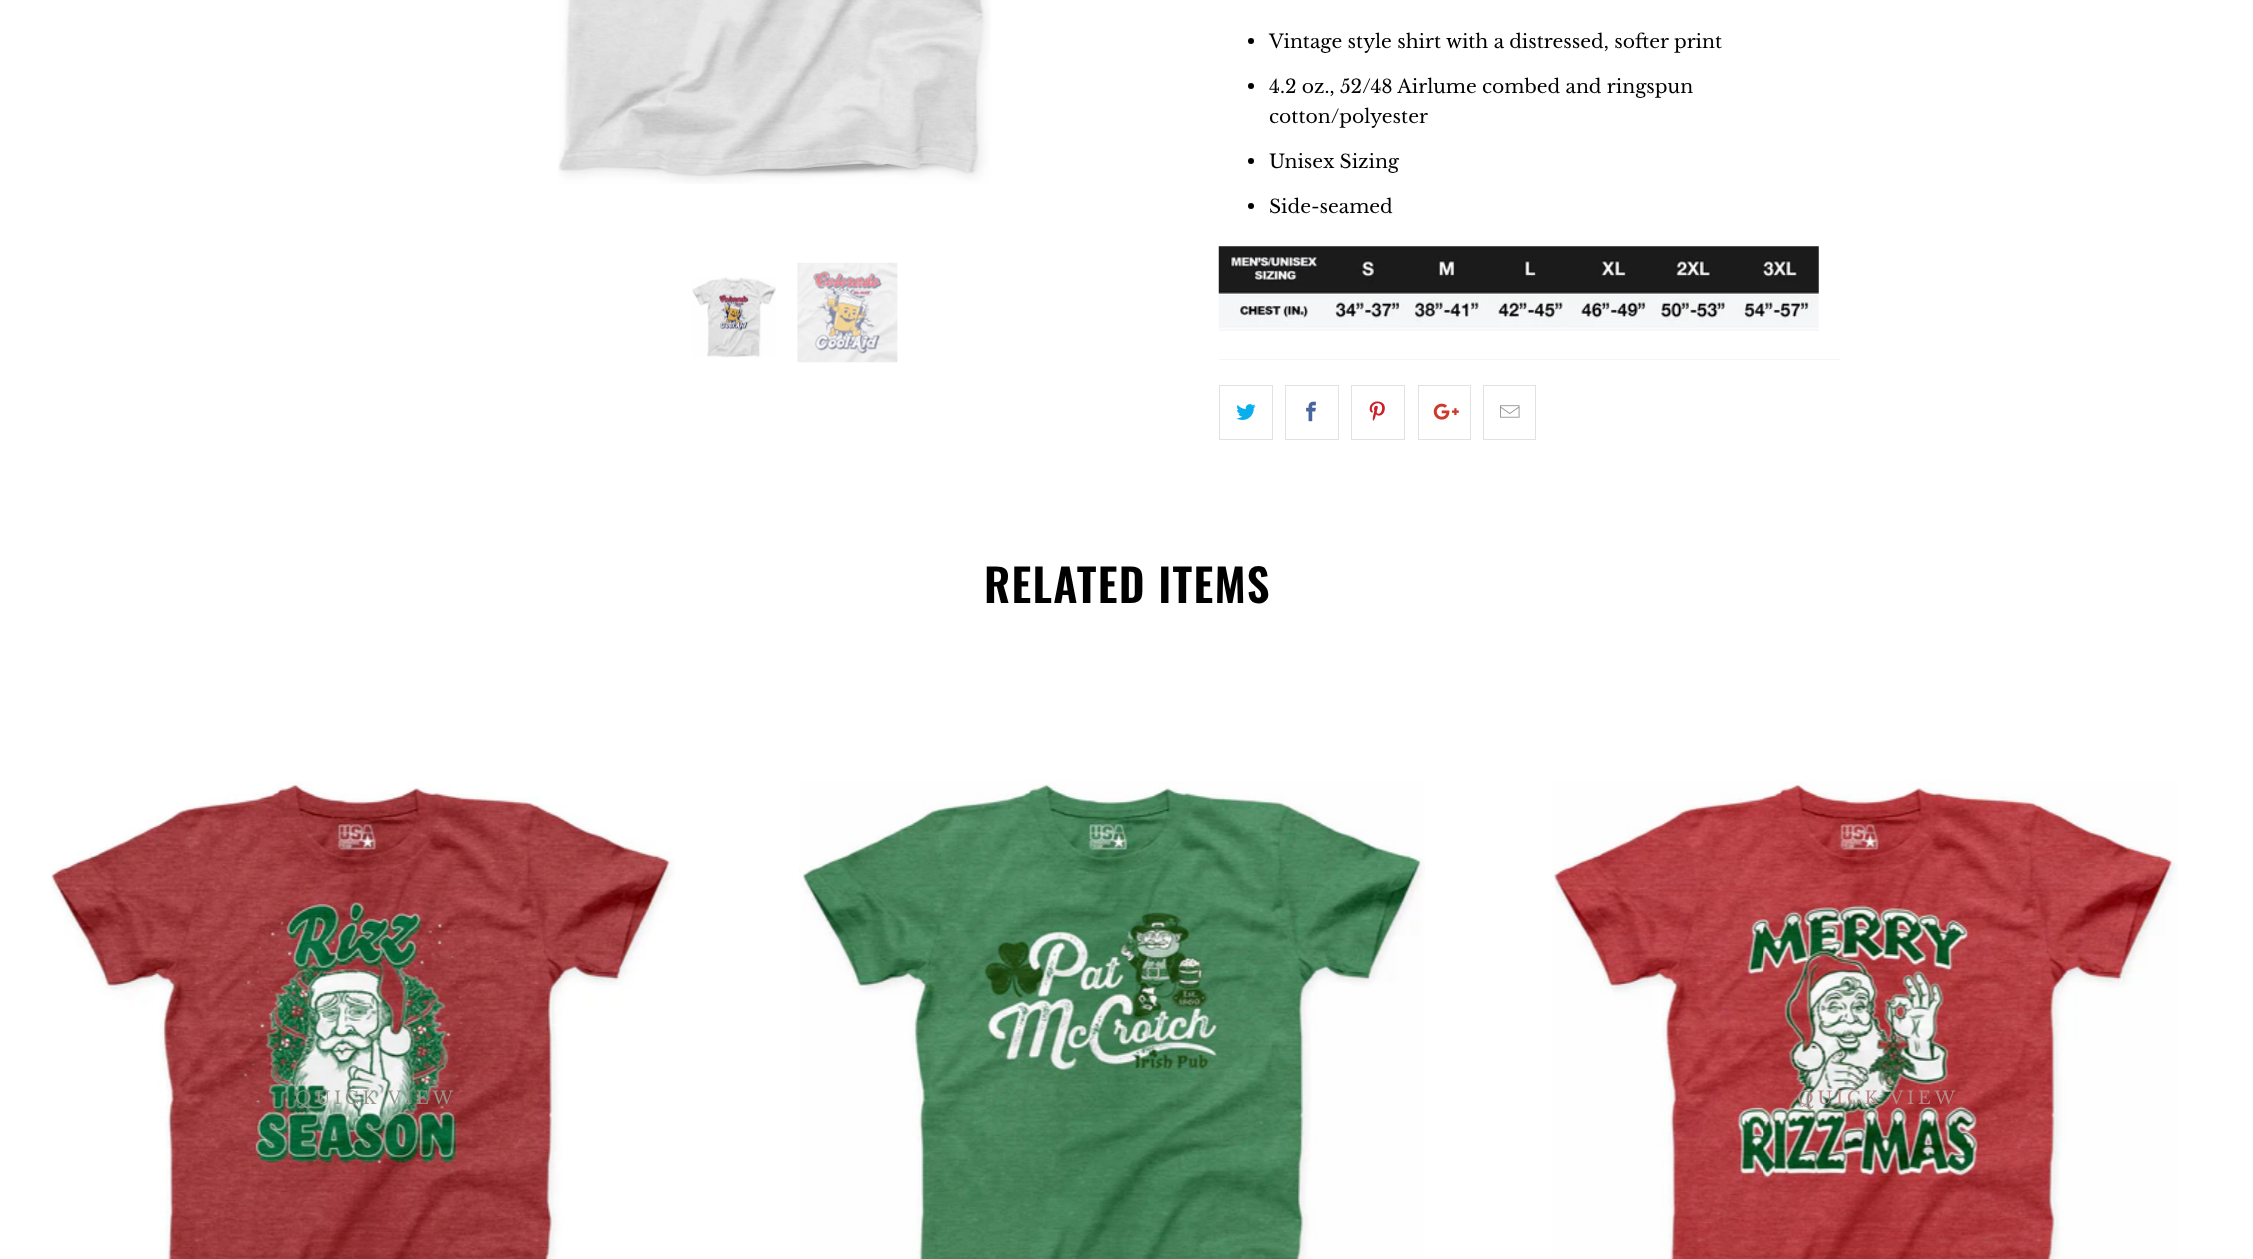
async function draw(canvas) {
  canvas.width = 2253;
  canvas.height = 1259;
  const ctx = canvas.getContext('2d');
  ctx.miterLimit = 4;
  ctx.fontKerning = 'normal';
  function label(s, x, y, font, color) {
    ctx.font = font;
    ctx.fillStyle = color;
    ctx.fillText(s, x, y);
  }
  function rect(x, y, w, h, color) {
    ctx.fillStyle = color;
    ctx.fillRect(x, y, w, h);
  }
  async function image(src, x, y, w, h) {
    const img = new Image();
    img.src = src;
    await img.decode();
    ctx.drawImage(img, x, y, w, h);
  }

  rect(0, 0, 2253, 1259, '#fff');
  await image('assets/img1.png', 558, 0, 433, 184);
  await image('assets/img2.png', 692, 277, 84, 81);
  await image('assets/img3.png', 797, 262, 101, 101);
  ctx.fillStyle = '#000';
  ctx.beginPath();
  ctx.arc(1251, 41, 3, 0, 2 * Math.PI);
  ctx.fill();
  label('Vintage style shirt with a distressed, softer print', 1269, 48, '18.75px Libre Baskerville', '#000');
  ctx.beginPath();
  ctx.arc(1251, 86, 3, 0, 2 * Math.PI);
  ctx.fill();
  label('4.2 oz., 52/48 Airlume combed and ringspun', 1269, 93, '18.75px Libre Baskerville', '#000');
  label('cotton/polyester', 1269, 123, '18.75px Libre Baskerville', '#000');
  ctx.beginPath();
  ctx.arc(1251, 161, 3, 0, 2 * Math.PI);
  ctx.fill();
  label('Unisex Sizing', 1269, 168, '18.75px Libre Baskerville', '#000');
  ctx.beginPath();
  ctx.arc(1251, 206, 3, 0, 2 * Math.PI);
  ctx.fill();
  label('Side-seamed', 1269, 213, '18.75px Libre Baskerville', '#000');
  await image('assets/img4.png', 1218, 246, 601, 85);
  rect(1219, 359, 621, 1, '#f5f5f5');
  ctx.strokeStyle = '#e2e2e2';
  ctx.strokeRect(1219.5, 385.5, 53, 54);
  await image('assets/img5.png', 1236, 404, 20, 16);
  ctx.strokeRect(1285.5, 385.5, 53, 54);
  await image('assets/img6.png', 1306, 401, 10, 21);
  ctx.strokeRect(1351.5, 385.5, 53, 54);
  await image('assets/img7.png', 1369, 401, 16, 20);
  ctx.strokeRect(1418.5, 385.5, 52, 54);
  await image('assets/img8.png', 1433, 403, 26, 17);
  ctx.strokeRect(1483.5, 385.5, 52, 54);
  await image('assets/img9.png', 1500, 405, 20, 13);
  ctx.letterSpacing = '1.25px';
  label('RELATED ITEMS', 984, 603, '600 45px Oswald', '#000');
  await image('assets/img10.png', 51, 781, 624, 478);
  ctx.letterSpacing = '3.75px';
  label('QUICK VIEW', 295, 1104, '17.5px Libre Baskerville', '#94988b');
  await image('assets/img11.png', 799, 781, 626, 478);
  await image('assets/img12.png', 1551, 781, 627, 478);
  label('QUICK VIEW', 1797, 1104, '17.5px Libre Baskerville', '#b88b89');
}

draw(document.querySelector('canvas'));
